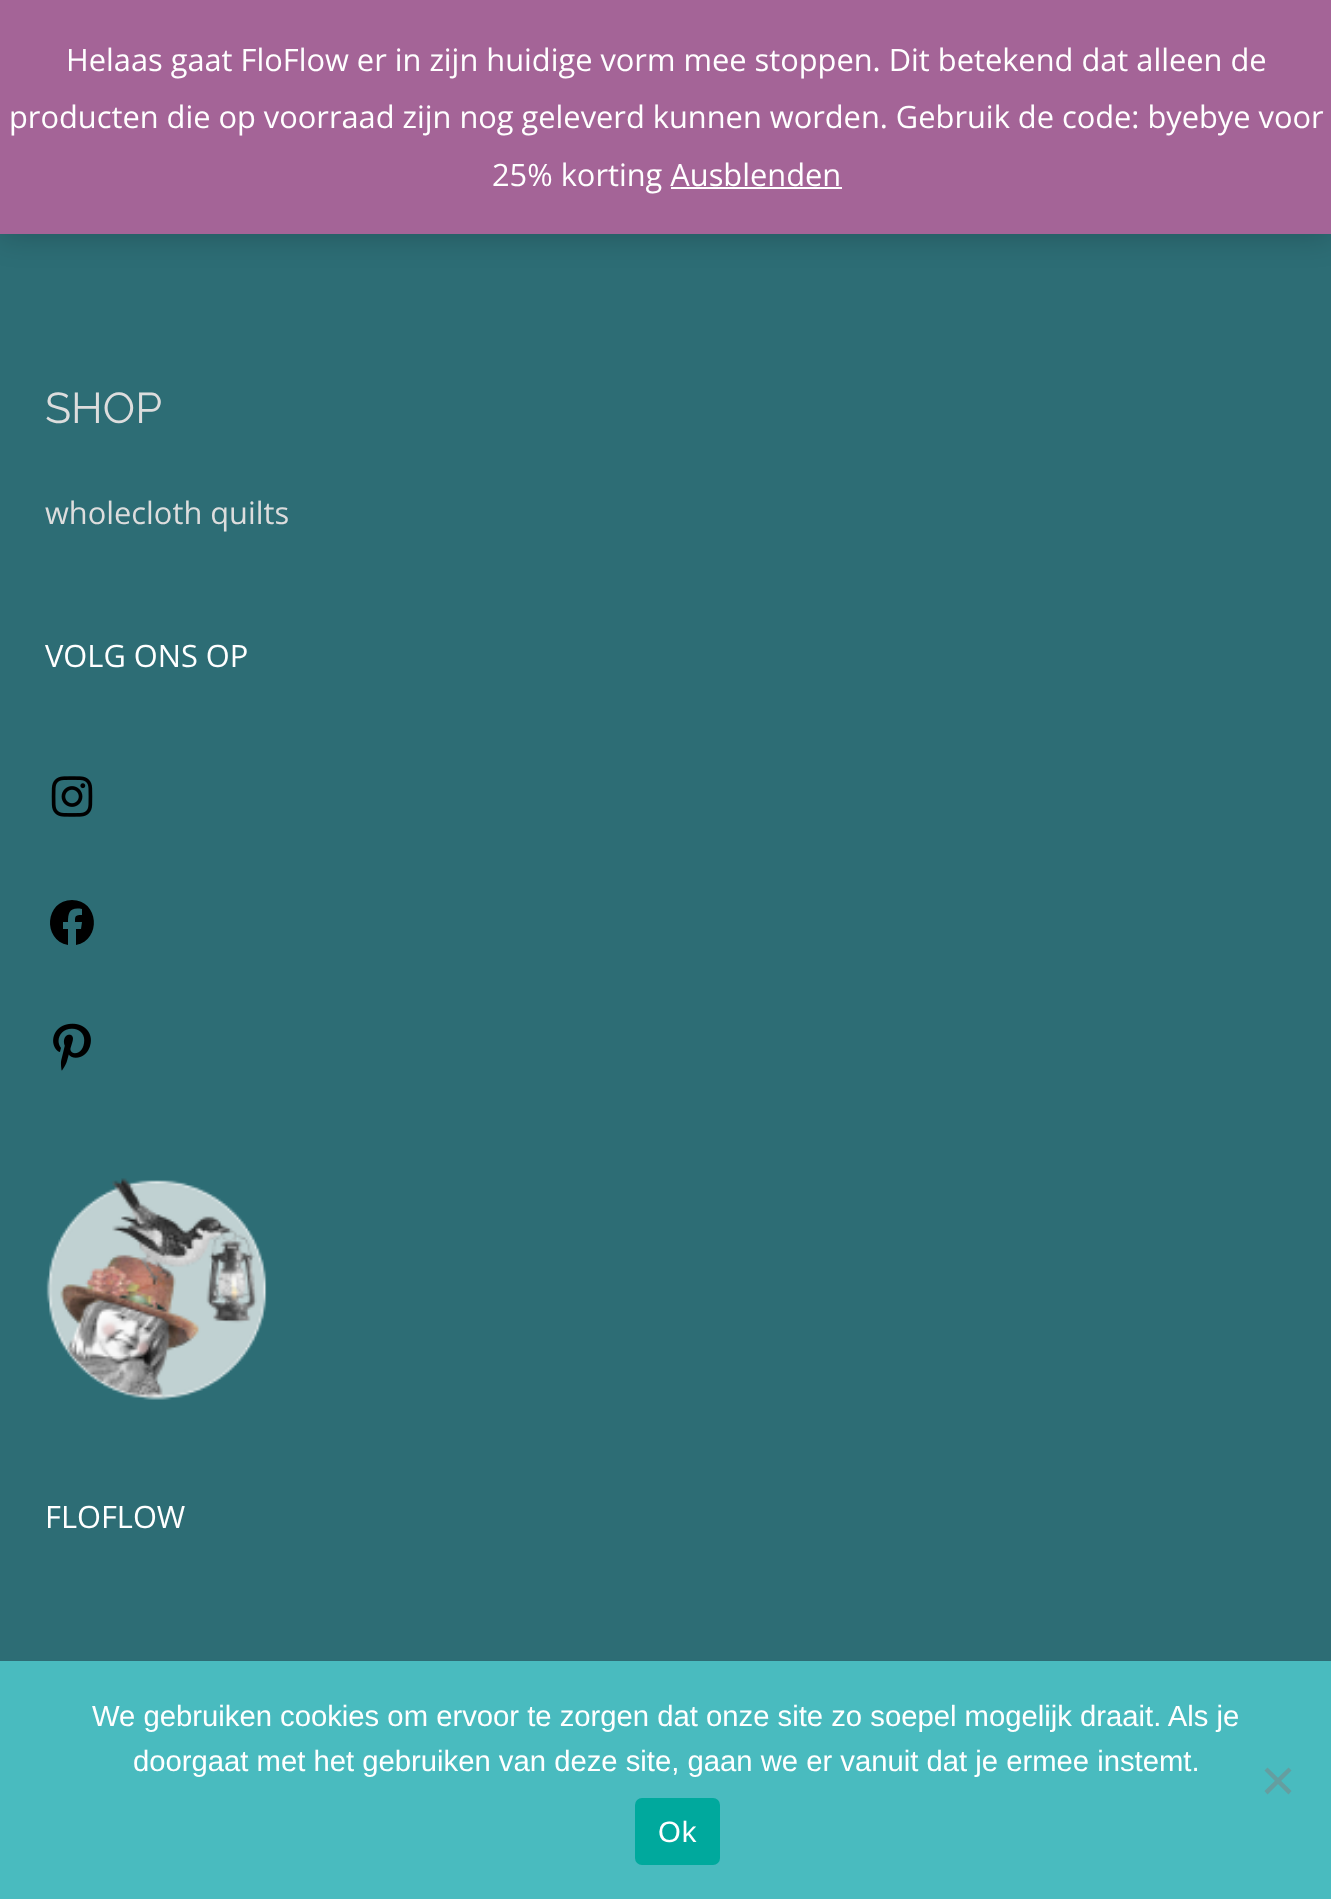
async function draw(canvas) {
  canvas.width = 1331;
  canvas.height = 1899;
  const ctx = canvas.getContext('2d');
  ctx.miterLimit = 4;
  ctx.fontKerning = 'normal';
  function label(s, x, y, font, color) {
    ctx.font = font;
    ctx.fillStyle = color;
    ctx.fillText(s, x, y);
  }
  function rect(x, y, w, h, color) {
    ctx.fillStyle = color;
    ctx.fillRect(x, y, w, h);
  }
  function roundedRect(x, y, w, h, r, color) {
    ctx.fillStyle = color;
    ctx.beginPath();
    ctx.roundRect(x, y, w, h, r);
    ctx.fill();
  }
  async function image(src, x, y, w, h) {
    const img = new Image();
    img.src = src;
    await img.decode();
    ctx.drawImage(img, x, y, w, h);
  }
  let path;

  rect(0, 0, 1331, 1899, '#2d6d75');
  ctx.fillStyle = '#00000033';
  ctx.filter = 'blur(15.5px)';
  ctx.beginPath();
  ctx.rect(0, 2, 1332, 234);
  ctx.fill();
  ctx.filter = 'none';
  rect(0, 0, 1331, 234, '#a46497');
  label('Helaas gaat FloFlow er in zijn huidige vorm mee stoppen. Dit betekend dat alleen de', 66, 71, '30.8px Open Sans', '#fff');
  label('producten die op voorraad zijn nog geleverd kunnen worden. Gebruik de code: byebye voor', 9, 128, '30.8px Open Sans', '#fff');
  label('25% korting Ausblenden', 492, 186, '30.8px Open Sans', '#fff');
  rect(671, 187, 171, 2, '#fff');
  label('SHOP', 45, 423, '100 43px Raleway', '#ddd');
  label('wholecloth quilts', 45, 524, '30.8px Open Sans', '#ddd');
  label('VOLG ONS OP', 45, 667, '30.8px Open Sans', '#fff');
  await image('assets/img1.png', 51, 776, 42, 41);
  ctx.fillStyle = '#000';
  path = new Path2D('M72 900C45 900 42 940 68 945V929H63V922H68C68 912 70 907 82 909V915C75 915 75 916 75 922H82L81 929H76V945C102 940 99 900 72 900Z');
  ctx.fill(path);
  await image('assets/img2.png', 53, 1023, 38, 48);
  await image('assets/img3.png', 46, 1178, 221, 222);
  label('FLOFLOW', 45, 1528, '30.8px Open Sans', '#fff');
  rect(0, 1661, 1331, 238, '#49bbbf');
  label('We gebruiken cookies om ervoor te zorgen dat onze site zo soepel mogelijk draait. Als je', 92, 1726, '29.25px Liberation Sans', '#fff');
  label('doorgaat met het gebruiken van deze site, gaan we er vanuit dat je ermee instemt.', 133, 1771, '29.25px Liberation Sans', '#fff');
  ctx.fillStyle = '#659ea0';
  path = new Path2D('M1288.5 1767.5L1291.5 1770.5L1267.5 1794.5L1264.5 1791Z');
  ctx.fill(path);
  path = new Path2D('M1264.5 1770.5L1267.5 1767.5L1291.5 1791L1288.5 1794.5Z');
  ctx.fill(path);
  roundedRect(635, 1798, 85, 67, 7, '#00a99d');
  ctx.letterSpacing = '1px';
  label('Ok', 658, 1842, '29.25px Liberation Sans', '#fff');
}

draw(document.querySelector('canvas'));
